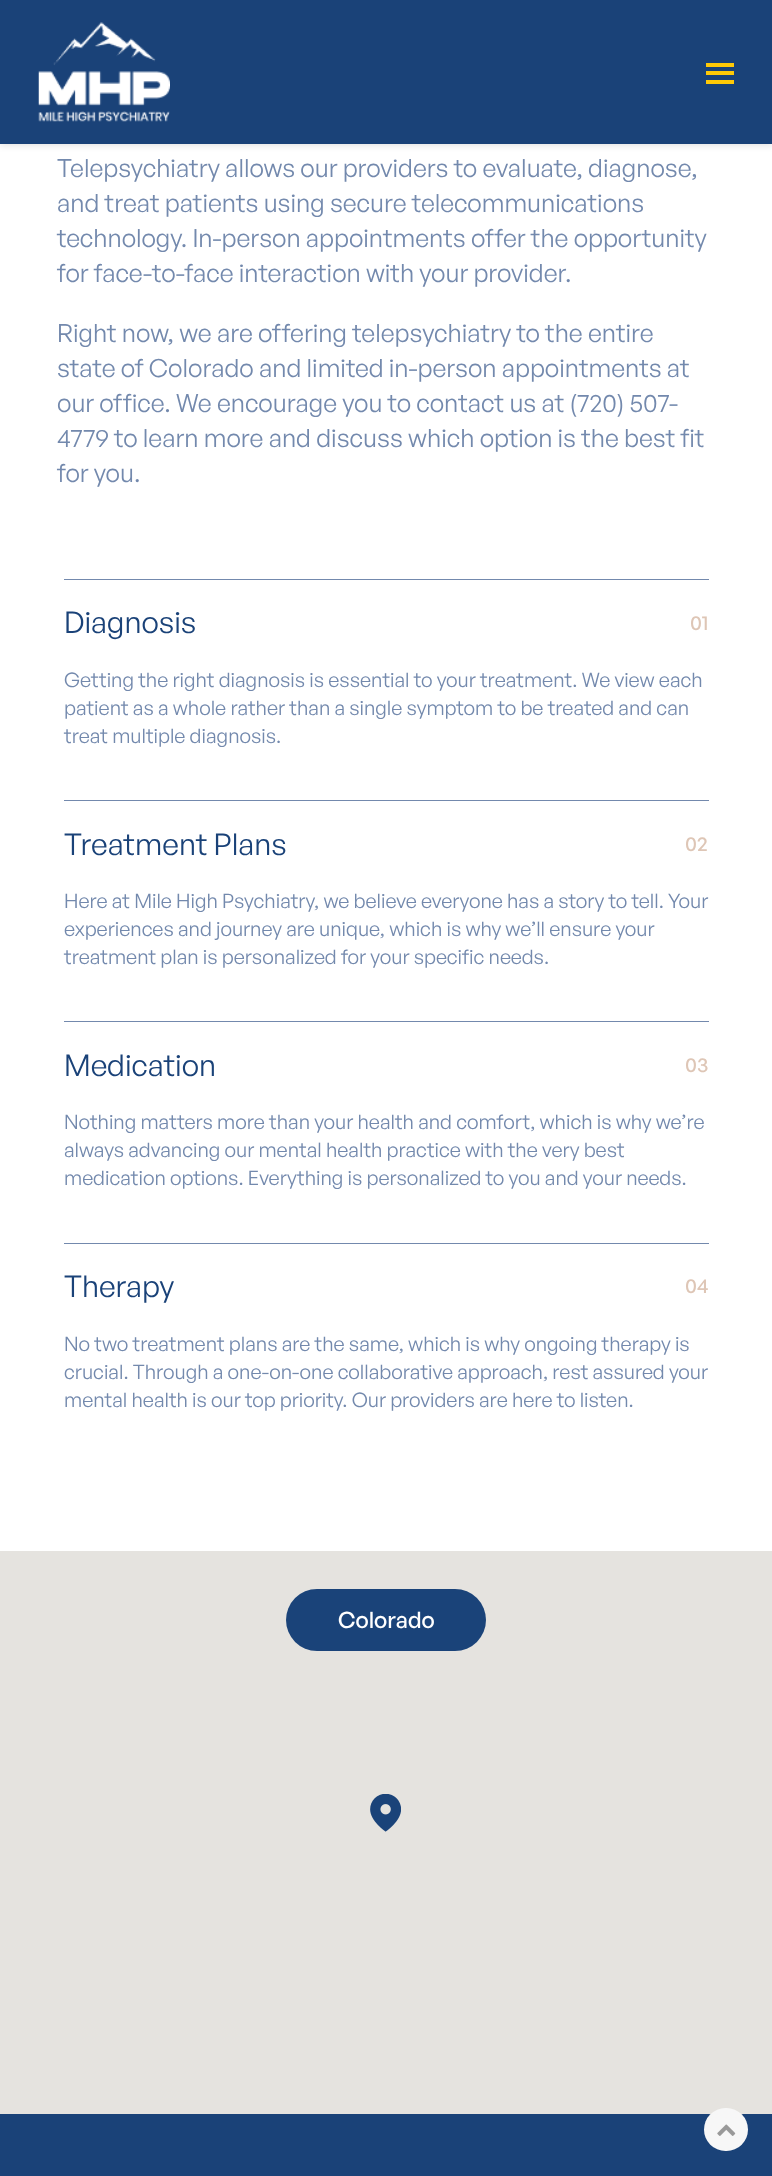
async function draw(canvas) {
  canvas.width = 772;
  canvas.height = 2176;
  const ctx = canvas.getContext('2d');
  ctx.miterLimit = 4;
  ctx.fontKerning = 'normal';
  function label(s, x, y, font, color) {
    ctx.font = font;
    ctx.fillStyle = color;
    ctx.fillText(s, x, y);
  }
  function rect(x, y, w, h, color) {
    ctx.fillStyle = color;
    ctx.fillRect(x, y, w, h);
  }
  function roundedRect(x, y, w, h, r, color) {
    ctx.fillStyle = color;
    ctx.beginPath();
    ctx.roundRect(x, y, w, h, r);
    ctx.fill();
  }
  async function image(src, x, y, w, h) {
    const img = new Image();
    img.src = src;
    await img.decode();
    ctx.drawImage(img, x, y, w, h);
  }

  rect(0, 0, 772, 2176, '#fff');
  ctx.fillStyle = '#0000001a';
  ctx.filter = 'blur(3px)';
  ctx.beginPath();
  ctx.rect(0, 3, 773, 143);
  ctx.fill();
  ctx.filter = 'none';
  rect(0, 0, 772, 144, '#1a4278');
  await image('assets/img1.png', 38, 22, 132, 100);
  rect(706, 71, 28, 4, '#ffc907');
  rect(706, 63, 28, 4, '#ffc907');
  rect(706, 80, 28, 4, '#ffc907');
  label('Telepsychiatry allows our providers to evaluate, diagnose,', 57, 177, '25px General Sans', '#7389ad');
  label('and treat patients using secure telecommunications', 57, 212, '25px General Sans', '#7389ad');
  label('technology. In-person appointments offer the opportunity', 57, 247, '25px General Sans', '#7389ad');
  label('for face-to-face interaction with your provider.', 57, 282, '25px General Sans', '#7389ad');
  label('Right now, we are offering telepsychiatry to the entire', 57, 342, '25px General Sans', '#7389ad');
  label('state of Colorado and limited in-person appointments at', 57, 377, '25px General Sans', '#7389ad');
  label('our office. We encourage you to contact us at (720) 507-', 57, 412, '25px General Sans', '#7389ad');
  label('4779 to learn more and discuss which option is the best fit', 57, 447, '25px General Sans', '#7389ad');
  label('for you.', 57, 482, '25px General Sans', '#7389ad');
  rect(64, 579, 645, 1, '#7389ad');
  label('Diagnosis', 64, 633, '30px General Sans', '#1a4278');
  label('01', 690, 630, '500 20px General Sans', '#dec6b6');
  label('Getting the right diagnosis is essential to your treatment. We view each', 64, 687, '20px General Sans', '#7389ad');
  label('patient as a whole rather than a single symptom to be treated and can', 64, 715, '20px General Sans', '#7389ad');
  label('treat multiple diagnosis.', 64, 743, '20px General Sans', '#7389ad');
  rect(64, 800, 645, 1, '#7389ad');
  label('Treatment Plans', 64, 855, '30px General Sans', '#1a4278');
  label('02', 685, 851, '500 20px General Sans', '#dec6b6');
  label('Here at Mile High Psychiatry, we believe everyone has a story to tell. Your', 64, 908, '20px General Sans', '#7389ad');
  label('experiences and journey are unique, which is why we’ll ensure your', 64, 936, '20px General Sans', '#7389ad');
  label('treatment plan is personalized for your specific needs.', 64, 964, '20px General Sans', '#7389ad');
  rect(64, 1021, 645, 1, '#7389ad');
  label('Medication', 64, 1076, '30px General Sans', '#1a4278');
  label('03', 685, 1072, '500 20px General Sans', '#dec6b6');
  label('Nothing matters more than your health and comfort, which is why we’re', 64, 1129, '20px General Sans', '#7389ad');
  label('always advancing our mental health practice with the very best', 64, 1157, '20px General Sans', '#7389ad');
  label('medication options. Everything is personalized to you and your needs.', 64, 1185, '20px General Sans', '#7389ad');
  rect(64, 1243, 645, 1, '#7389ad');
  label('Therapy', 64, 1297, '30px General Sans', '#1a4278');
  label('04', 685, 1293, '500 20px General Sans', '#dec6b6');
  label('No two treatment plans are the same, which is why ongoing therapy is', 64, 1351, '20px General Sans', '#7389ad');
  label('crucial. Through a one-on-one collaborative approach, rest assured your', 64, 1379, '20px General Sans', '#7389ad');
  label('mental health is our top priority. Our providers are here to listen.', 64, 1407, '20px General Sans', '#7389ad');
  rect(0, 1551, 772, 563, '#e5e3df');
  await image('assets/img2.png', 370, 1794, 31, 38);
  roundedRect(286, 1589, 200, 62, 31, '#1a4379');
  label('Colorado', 338, 1628, '500 22.5px General Sans', '#fff');
  rect(0, 2114, 772, 62, '#1a4278');
  roundedRect(704, 2108, 44, 43, 21.5, '#f7f7f7');
  await image('assets/img3.png', 717, 2124, 19, 12);
}

draw(document.querySelector('canvas'));
